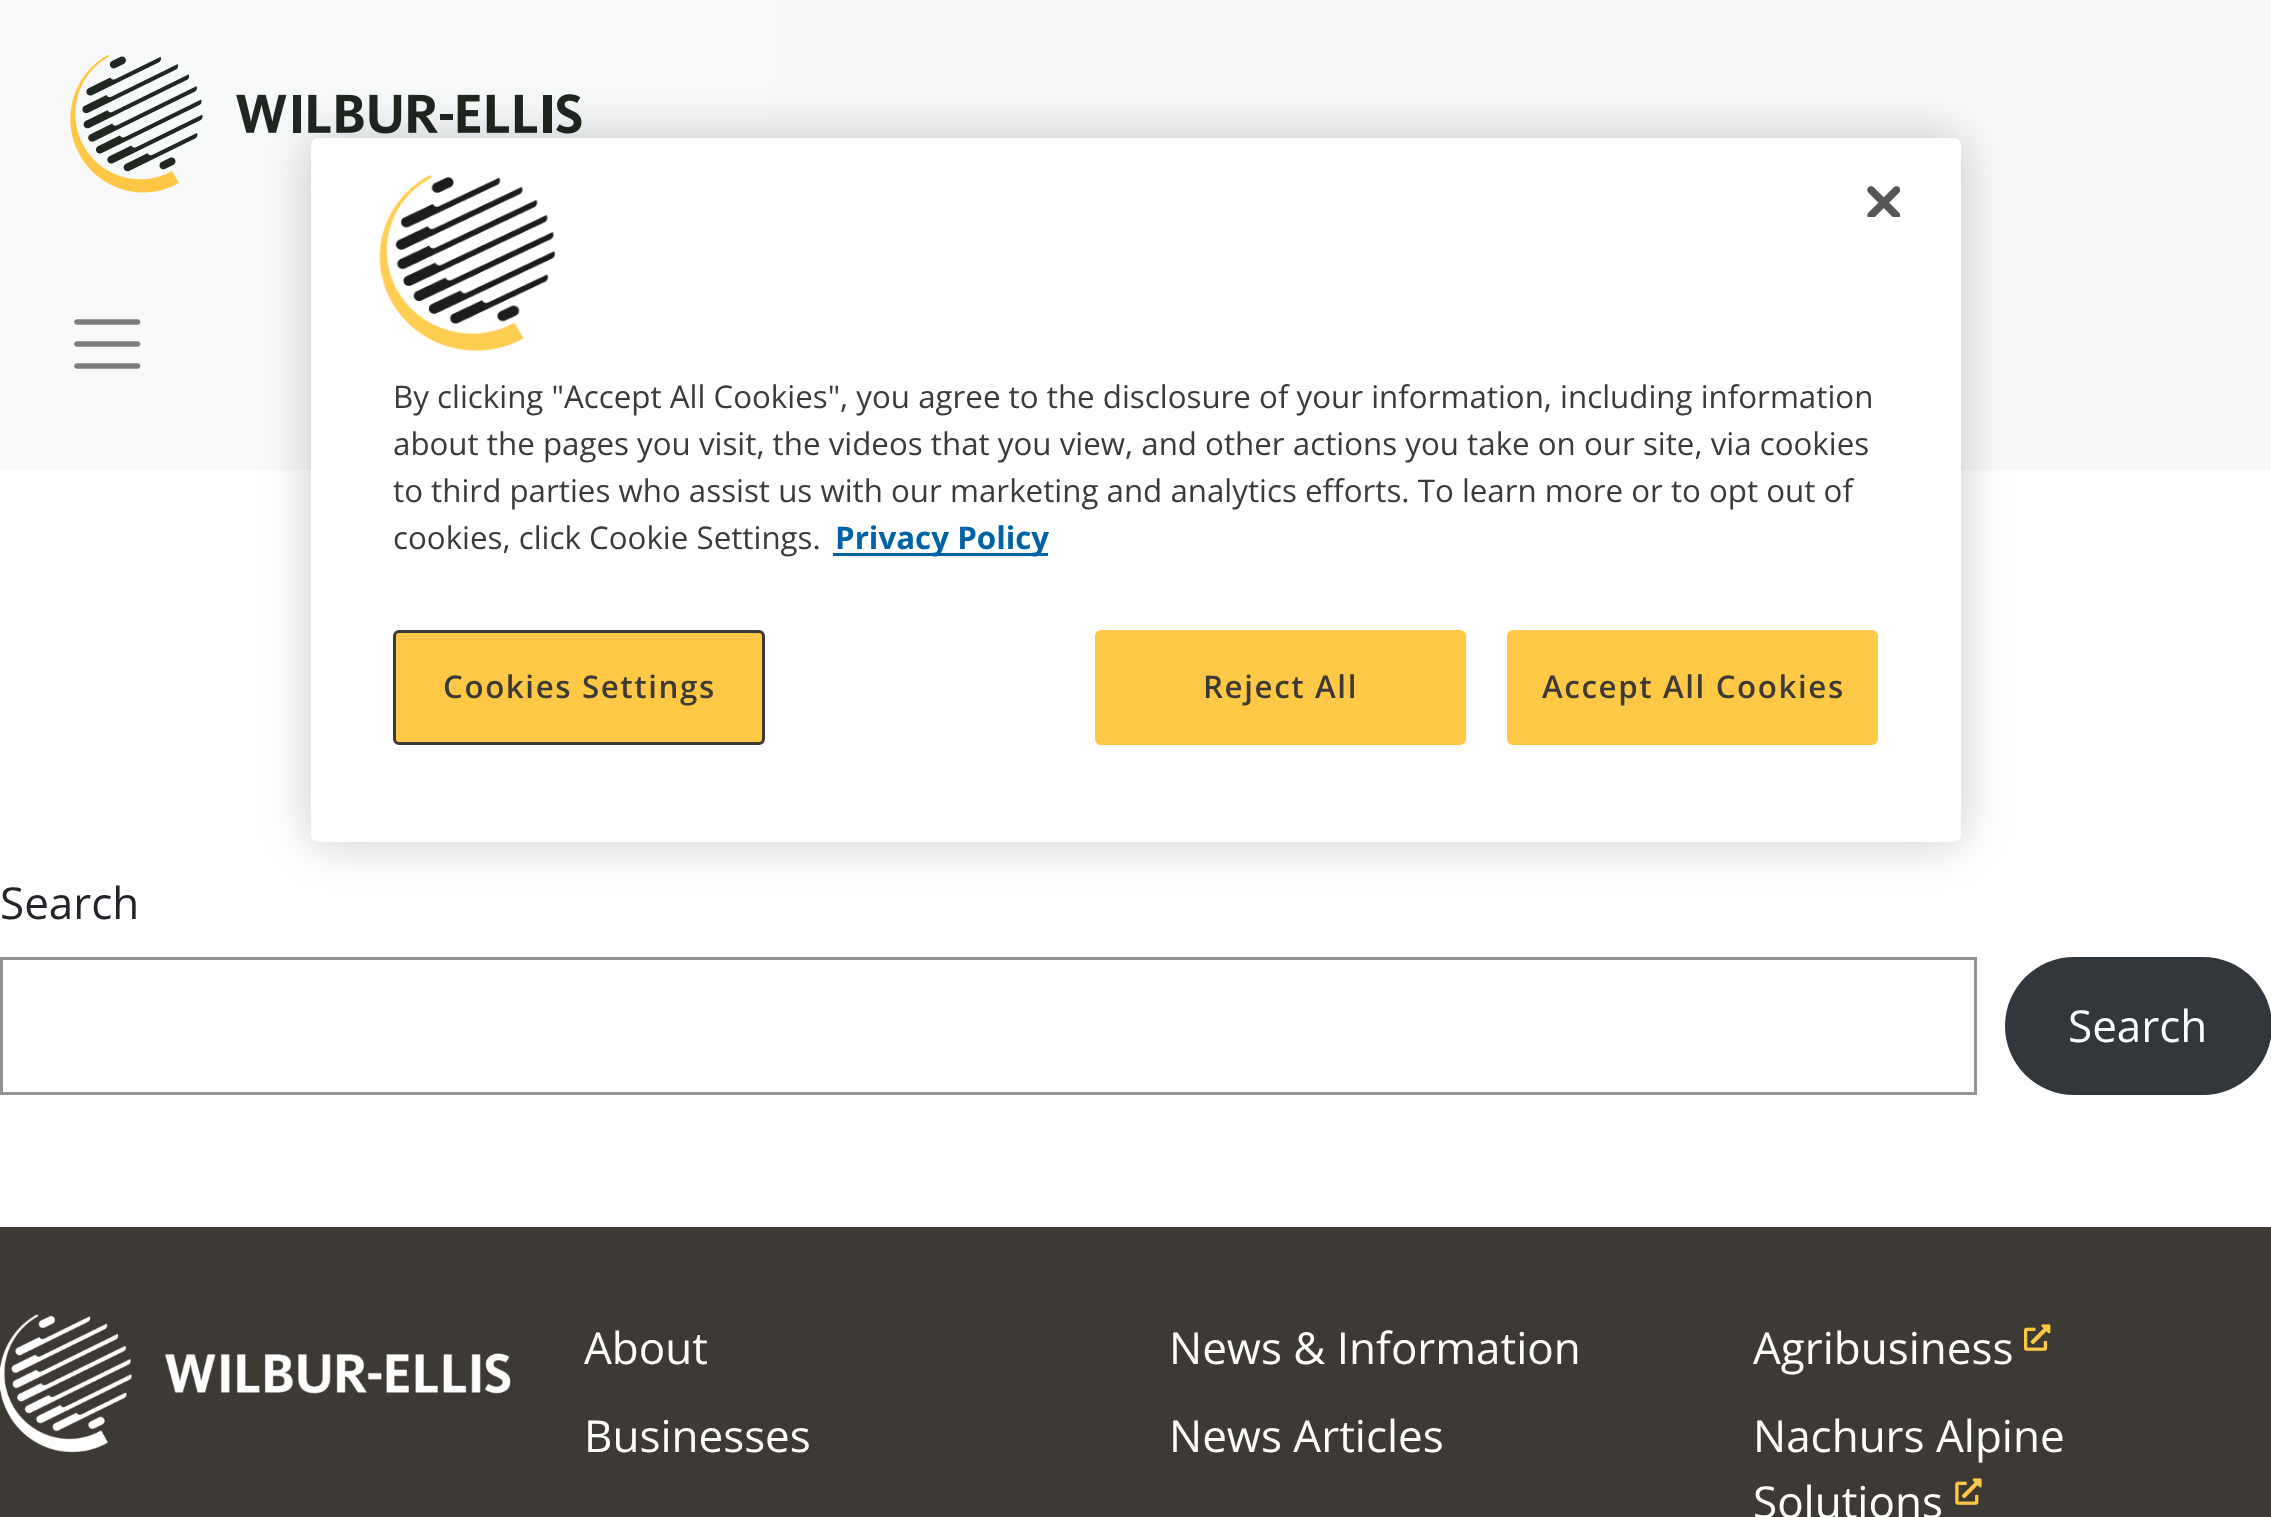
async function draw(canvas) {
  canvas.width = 2271;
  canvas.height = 1517;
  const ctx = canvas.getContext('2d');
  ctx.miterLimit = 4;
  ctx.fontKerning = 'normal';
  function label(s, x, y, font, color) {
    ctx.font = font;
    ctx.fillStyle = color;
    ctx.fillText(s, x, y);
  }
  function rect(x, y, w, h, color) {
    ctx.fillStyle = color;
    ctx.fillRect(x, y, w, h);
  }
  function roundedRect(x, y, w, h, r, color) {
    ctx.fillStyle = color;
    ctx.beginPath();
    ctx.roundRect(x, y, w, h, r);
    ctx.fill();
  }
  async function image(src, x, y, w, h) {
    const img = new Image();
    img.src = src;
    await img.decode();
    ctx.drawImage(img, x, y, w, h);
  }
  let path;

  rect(0, 0, 2271, 1517, '#fff');
  rect(770, 0, 1501, 470, '#f8f8f8');
  rect(0, 0, 770, 470, '#f8f9fa');
  await image('assets/img3.png', 70, 55, 512, 138);
  ctx.fillStyle = '#00000033';
  ctx.filter = 'blur(25px)';
  ctx.beginPath();
  ctx.roundRect(311, 138, 1650, 704, 7);
  ctx.fill();
  ctx.filter = 'none';
  roundedRect(311, 138, 1650, 704, 7, '#fff');
  await image('assets/img1.png', 1867, 186, 33, 31);
  await image('assets/img2.png', 379, 175, 177, 177);
  label('By clicking "Accept All Cookies", you agree to the disclosure of your information, including information', 393, 408, '31.3px Open Sans', '#3d3936');
  label('about the pages you visit, the videos that you view, and other actions you take on our site, via cookies', 393, 455, '31.3px Open Sans', '#3d3936');
  label('to third parties who assist us with our marketing and analytics efforts. To learn more or to opt out of', 393, 502, '31.3px Open Sans', '#3d3936');
  label('cookies, click Cookie Settings.', 393, 549, '31.3px Open Sans', '#3d3936');
  rect(833, 553, 215, 3, '#0062a6');
  label('Privacy Policy', 835, 549, 'bold 31.3px Open Sans', '#0062a6');
  ctx.fillStyle = '#ffc845';
  ctx.beginPath();
  ctx.roundRect(394.5, 631.5, 369, 112, 4.5);
  ctx.fill();
  ctx.strokeStyle = '#3d3936';
  ctx.lineWidth = 3;
  ctx.stroke();
  ctx.letterSpacing = '1.6px';
  label('Cookies Settings', 443, 698, '600 31.3px Open Sans', '#3d3936');
  ctx.fillStyle = '#ffc845';
  ctx.beginPath();
  ctx.roundRect(1096.5, 631.5, 368, 112, 4.5);
  ctx.fill();
  ctx.strokeStyle = '#ffc845';
  ctx.stroke();
  label('Reject All', 1203, 698, '600 31.3px Open Sans', '#3d3936');
  ctx.fillStyle = '#ffc845';
  ctx.beginPath();
  ctx.roundRect(1508.5, 631.5, 368, 112, 4.5);
  ctx.fill();
  ctx.stroke();
  label('Accept All Cookies', 1542, 698, '600 31.3px Open Sans', '#3d3936');
  path = new Path2D('M77 322H137.5M77 344H137.5M77 366H137.5');
  ctx.strokeStyle = '#7c7d7d';
  ctx.lineWidth = 5.5;
  ctx.lineCap = 'round';
  ctx.stroke(path);
  ctx.letterSpacing = '0px';
  label('Search', 0, 919, '44px Open Sans', '#212529');
  ctx.strokeStyle = '#949494';
  ctx.lineWidth = 3;
  ctx.strokeRect(1.5, 958.5, 1974, 135);
  roundedRect(2005, 957, 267, 138, 69, '#32373c');
  label('Search', 2068, 1042, '44px Open Sans', '#fff');
  rect(0, 1227, 2271, 290, '#3d3935');
  await image('assets/img4.png', 0, 1314, 511, 139);
  label('About', 584, 1364, '44px Open Sans', '#fff');
  label('Businesses', 584, 1452, '44px Open Sans', '#fff');
  label('News & Information', 1169, 1364, '44px Open Sans', '#fff');
  label('News Articles', 1169, 1452, '44px Open Sans', '#fff');
  label('Agribusiness', 1753, 1364, '44px Open Sans', '#fff');
  await image('assets/img5.png', 2024, 1324, 27, 27);
  label('Nachurs Alpine', 1753, 1452, '44px Open Sans', '#fff');
  label('Solutions', 1753, 1518, '44px Open Sans', '#fff');
  await image('assets/img6.png', 1955, 1478, 27, 27);
}

draw(document.querySelector('canvas'));
